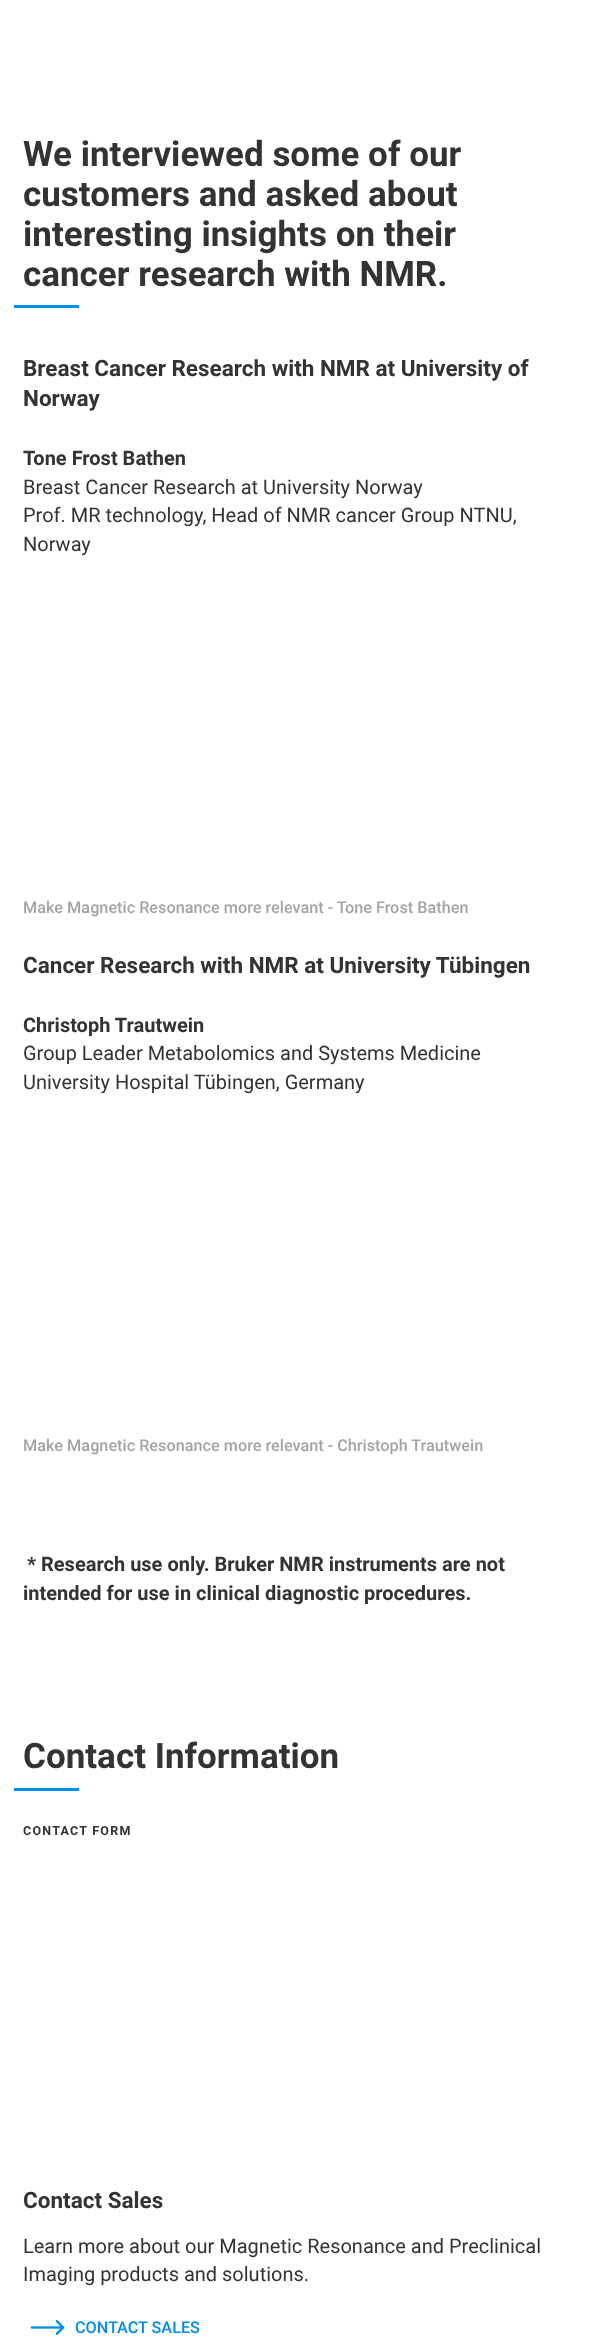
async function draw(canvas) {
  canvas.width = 592;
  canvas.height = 2342;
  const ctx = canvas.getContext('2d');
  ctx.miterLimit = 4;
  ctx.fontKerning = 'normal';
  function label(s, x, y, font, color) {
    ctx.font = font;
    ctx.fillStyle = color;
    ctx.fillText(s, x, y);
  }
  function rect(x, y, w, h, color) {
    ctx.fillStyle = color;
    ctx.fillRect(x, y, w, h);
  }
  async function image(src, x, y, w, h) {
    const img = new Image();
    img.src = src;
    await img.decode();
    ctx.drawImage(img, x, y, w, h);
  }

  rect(0, 0, 592, 2342, '#fff');
  label('We interviewed some of our', 23, 166, 'bold 35px Roboto', '#333');
  label('customers and asked about', 23, 206, 'bold 35px Roboto', '#333');
  label('interesting insights on their', 23, 246, 'bold 35px Roboto', '#333');
  label('cancer research with NMR.', 23, 286, 'bold 35px Roboto', '#333');
  rect(14, 305, 65, 3, '#008deb');
  label('Breast Cancer Research with NMR at University of', 23, 376, 'bold 22.5px Roboto', '#333');
  label('Norway', 23, 406, 'bold 22.5px Roboto', '#333');
  label('Tone Frost Bathen', 23, 465, 'bold 20px Roboto', '#333');
  label('Breast Cancer Research at University Norway', 23, 494, '20px Roboto', '#333');
  label('Prof. MR technology, Head of NMR cancer Group NTNU,', 23, 522, '20px Roboto', '#333');
  label('Norway', 23, 551, '20px Roboto', '#333');
  label('Make Magnetic Resonance more relevant - Tone Frost Bathen', 23, 913, '500 16.25px Roboto', '#a4a4a4');
  label('Cancer Research with NMR at University Tübingen', 23, 973, 'bold 22.5px Roboto', '#333');
  label('Christoph Trautwein', 23, 1032, 'bold 20px Roboto', '#333');
  label('Group Leader Metabolomics and Systems Medicine', 23, 1060, '20px Roboto', '#333');
  label('University Hospital Tübingen, Germany', 23, 1089, '20px Roboto', '#333');
  label('Make Magnetic Resonance more relevant - Christoph Trautwein', 23, 1451, '500 16.25px Roboto', '#a4a4a4');
  label('* Research use only. Bruker NMR instruments are not', 27, 1571, 'bold 20px Roboto', '#333');
  label('intended for use in clinical diagnostic procedures.', 23, 1600, 'bold 20px Roboto', '#333');
  label('Contact Information', 23, 1768, 'bold 35px Roboto', '#333');
  rect(14, 1788, 65, 3, '#008deb');
  ctx.letterSpacing = '1.25px';
  label('CONTACT FORM', 23, 1835, 'bold 12.5px Roboto', '#333');
  ctx.letterSpacing = '0px';
  label('Contact Sales', 23, 2208, 'bold 22.5px Roboto', '#333');
  label('Learn more about our Magnetic Resonance and Preclinical', 23, 2253, '20px Roboto', '#333');
  label('Imaging products and solutions.', 23, 2281, '20px Roboto', '#333');
  await image('assets/img1.png', 30, 2320, 35, 15);
  label('CONTACT SALES', 75, 2333, '500 16.25px Roboto', '#008deb');
}

draw(document.querySelector('canvas'));
